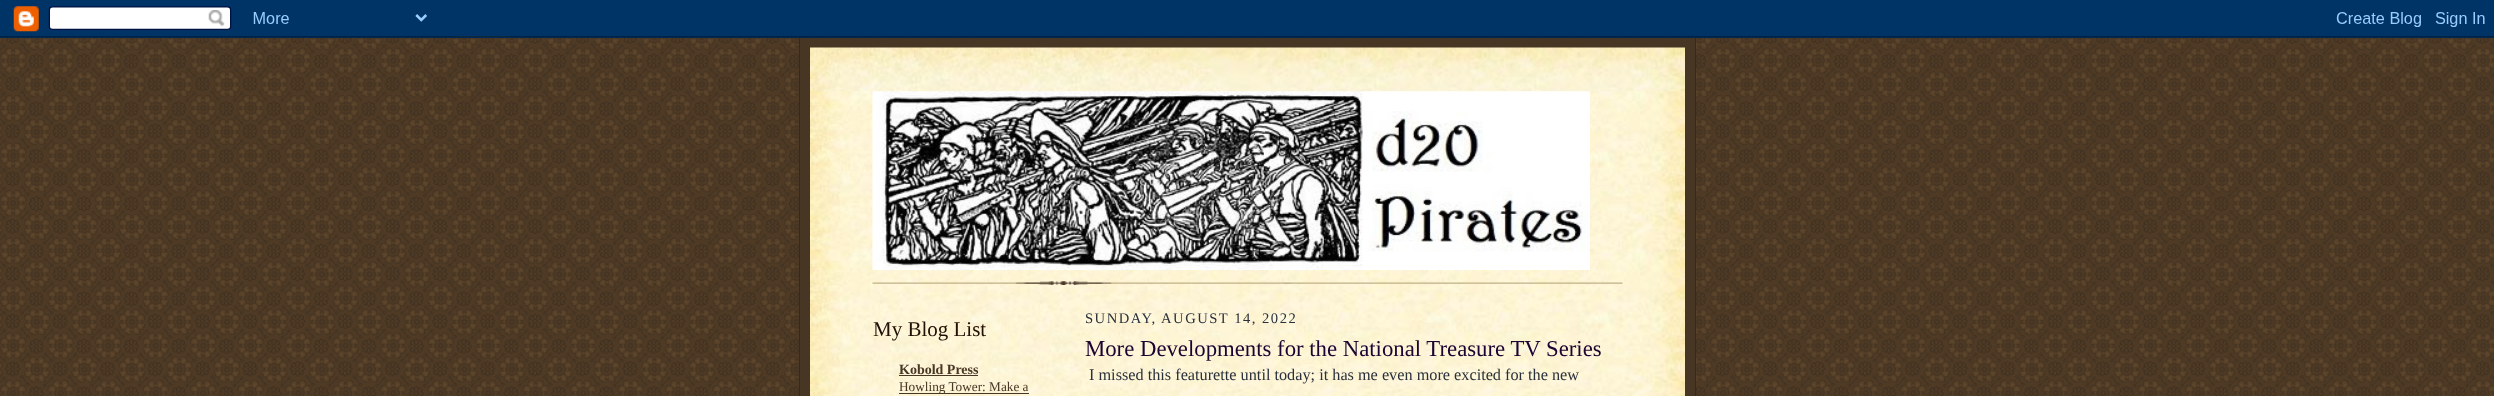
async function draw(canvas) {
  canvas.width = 2494;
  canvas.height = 396;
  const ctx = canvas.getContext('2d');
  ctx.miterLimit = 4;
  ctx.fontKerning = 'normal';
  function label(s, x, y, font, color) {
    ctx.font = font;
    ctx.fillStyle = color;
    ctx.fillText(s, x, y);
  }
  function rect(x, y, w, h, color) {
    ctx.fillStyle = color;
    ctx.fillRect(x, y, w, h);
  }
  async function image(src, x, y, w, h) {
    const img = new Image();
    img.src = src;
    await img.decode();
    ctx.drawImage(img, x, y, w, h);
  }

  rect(0, 0, 2494, 396, '#fff');
  await image('assets/img1.png', 0, 36, 2494, 360);
  await image('assets/img2.png', 0, 0, 2494, 38);
  rect(800, 38, 895, 358, '#473624');
  rect(1695, 38, 1, 358, '#332a24');
  rect(799, 38, 1, 358, '#332a24');
  await image('assets/img3.png', 810, 47, 875, 45);
  await image('assets/img4.png', 810, 91, 875, 305);
  await image('assets/img5.png', 872, 281, 751, 4);
  await image('assets/img6.png', 872, 91, 718, 179);
  label('My Blog List', 873, 336, '21px Liberation Serif', '#211104');
  label('Kobold Press', 899, 374, 'bold 14px Liberation Serif', '#473624');
  rect(899, 375, 79, 1, '#473624');
  rect(899, 393, 130, 1, '#473624');
  label('Howling Tower: Make a', 899, 391, '13.25px Liberation Serif', '#473624');
  ctx.letterSpacing = '1.5px';
  label('SUNDAY, AUGUST 14, 2022', 1085, 323, '14.6px Liberation Serif', '#29303b');
  ctx.letterSpacing = '0px';
  label('More Developments for the National Treasure TV Series', 1085, 356, '22.75px Liberation Serif', '#1b0431');
  label('I missed this featurette until today; it has me even more excited for the new', 1089, 380, '16.25px Liberation Serif', '#29303b');
}

draw(document.querySelector('canvas'));
